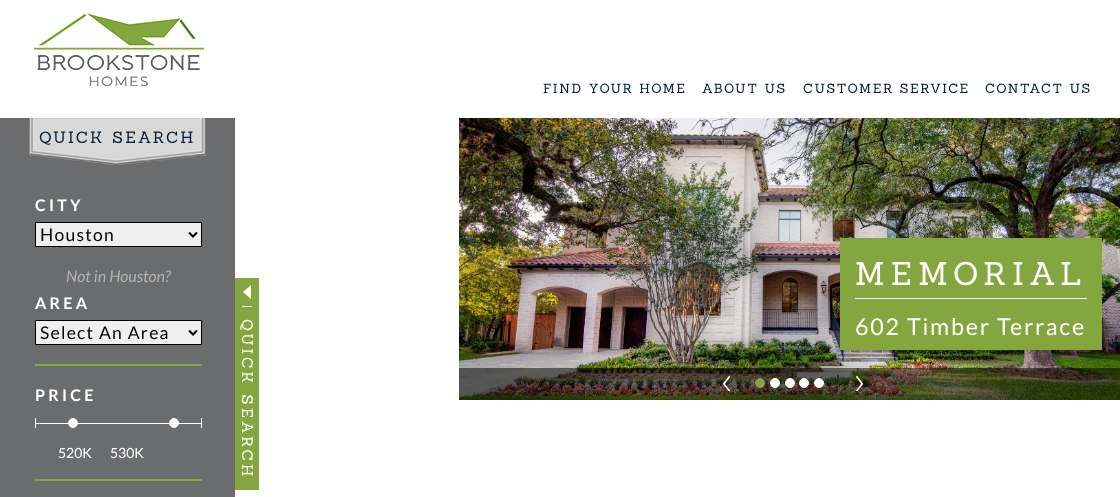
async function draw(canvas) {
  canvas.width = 1120;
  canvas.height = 497;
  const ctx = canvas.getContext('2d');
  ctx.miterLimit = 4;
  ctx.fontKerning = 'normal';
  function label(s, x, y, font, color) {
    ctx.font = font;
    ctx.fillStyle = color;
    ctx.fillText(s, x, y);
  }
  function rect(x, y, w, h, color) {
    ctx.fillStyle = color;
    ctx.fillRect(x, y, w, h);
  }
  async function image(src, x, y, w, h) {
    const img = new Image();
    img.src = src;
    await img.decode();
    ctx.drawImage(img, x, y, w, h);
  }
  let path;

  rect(0, 0, 1120, 497, '#fff');
  await image('assets/img1.png', 34, 13, 170, 73);
  ctx.letterSpacing = '1.75px';
  label('FIND YOUR HOME', 543, 93, '13px Sanchez', '#001c37');
  label('ABOUT US', 702, 93, '13px Sanchez', '#001c37');
  label('CUSTOMER SERVICE', 803, 93, '13px Sanchez', '#001c37');
  label('CONTACT US', 985, 93, '13px Sanchez', '#001c37');
  rect(0, 118, 235, 379, '#6b6c6e');
  await image('assets/img2.png', 29, 118, 177, 47);
  ctx.letterSpacing = '2.5px';
  label('QUICK SEARCH', 39, 143, '16px Sanchez', '#001c37');
  ctx.letterSpacing = '3.25px';
  label('CITY', 35, 211, 'bold 16px Lato', '#fff');
  ctx.fillStyle = '#efefef';
  ctx.beginPath();
  ctx.rect(35.5, 222.5, 166, 24);
  ctx.fill();
  ctx.strokeStyle = '#000';
  ctx.stroke();
  path = new Path2D('M189 232.5L193 236.5L197 232.5');
  ctx.lineWidth = 2;
  ctx.stroke(path);
  ctx.letterSpacing = '1.25px';
  label('Houston', 40, 241, '17.5px Lato', '#000');
  ctx.letterSpacing = '0px';
  label('Not in Houston?', 66, 282, 'italic 16px Lato', '#b3b3b3');
  ctx.letterSpacing = '3.25px';
  label('AREA', 35, 309, 'bold 16px Lato', '#fff');
  ctx.fillStyle = '#efefef';
  ctx.beginPath();
  ctx.rect(35.5, 320.5, 166, 24);
  ctx.fill();
  ctx.lineWidth = 1;
  ctx.stroke();
  path = new Path2D('M189 330.5L193 334.5L197 330.5');
  ctx.lineWidth = 2;
  ctx.stroke(path);
  ctx.letterSpacing = '1.25px';
  label('Select An Area', 40, 339, '17.5px Lato', '#000');
  rect(35, 364, 167, 2, '#84a63e');
  ctx.letterSpacing = '3.25px';
  label('PRICE', 35, 401, 'bold 16px Lato', '#fff');
  rect(35, 423, 167, 1, '#fff');
  rect(35, 418, 1, 10, '#fff');
  ctx.beginPath();
  ctx.arc(73, 423, 4.5, 0, 2 * Math.PI);
  ctx.fill();
  ctx.strokeStyle = '#fff';
  ctx.lineWidth = 1;
  ctx.stroke();
  ctx.beginPath();
  ctx.arc(174, 423, 4.5, 0, 2 * Math.PI);
  ctx.fill();
  ctx.stroke();
  rect(201, 418, 1, 10, '#fff');
  ctx.letterSpacing = '0px';
  label('520K', 58, 458, '14px Lato', '#fff');
  label('530K', 110, 458, '14px Lato', '#fff');
  rect(35, 479, 167, 2, '#84a63e');
  await image('assets/img3.png', 459, 118, 661, 282);
  rect(840, 238, 262, 112, '#84a63e');
  ctx.letterSpacing = '6.5px';
  label('MEMORIAL', 855, 285, '32px Sanchez', '#fff');
  rect(855, 298, 232, 1, '#fff');
  ctx.letterSpacing = '1.75px';
  label('602 Timber Terrace', 855, 335, '23.25px Lato', '#fff');
  rect(459, 368, 661, 32, '#00000080');
  await image('assets/img4.png', 723, 376, 7, 15);
  ctx.fillStyle = '#84a63e';
  ctx.beginPath();
  ctx.arc(760, 383, 4.5, 0, 2 * Math.PI);
  ctx.fill();
  ctx.strokeStyle = '#84a63e';
  ctx.stroke();
  ctx.fillStyle = '#fff';
  ctx.beginPath();
  ctx.arc(775, 383, 4.5, 0, 2 * Math.PI);
  ctx.fill();
  ctx.strokeStyle = '#fff';
  ctx.stroke();
  ctx.beginPath();
  ctx.arc(790, 383, 4.5, 0, 2 * Math.PI);
  ctx.fill();
  ctx.stroke();
  ctx.beginPath();
  ctx.arc(804, 383, 4.5, 0, 2 * Math.PI);
  ctx.fill();
  ctx.stroke();
  ctx.beginPath();
  ctx.arc(819, 383, 4.5, 0, 2 * Math.PI);
  ctx.fill();
  ctx.stroke();
  await image('assets/img5.png', 856, 376, 7, 15);
  rect(235, 278, 24, 212, '#84a63e');
  await image('assets/img6.png', 243, 285, 8, 14);
  rect(242, 306, 10, 1, '#eee');
  ctx.letterSpacing = '3.5px';
  ctx.font = '15px Sanchez';
  ctx.fillStyle = '#fff';
  ctx.save();
  ctx.translate(242, 319);
  ctx.rotate(90 * Math.PI / 180);
  ctx.fillText('QUICK SEARCH', 0, 0);
  ctx.restore();
}

draw(document.querySelector('canvas'));
